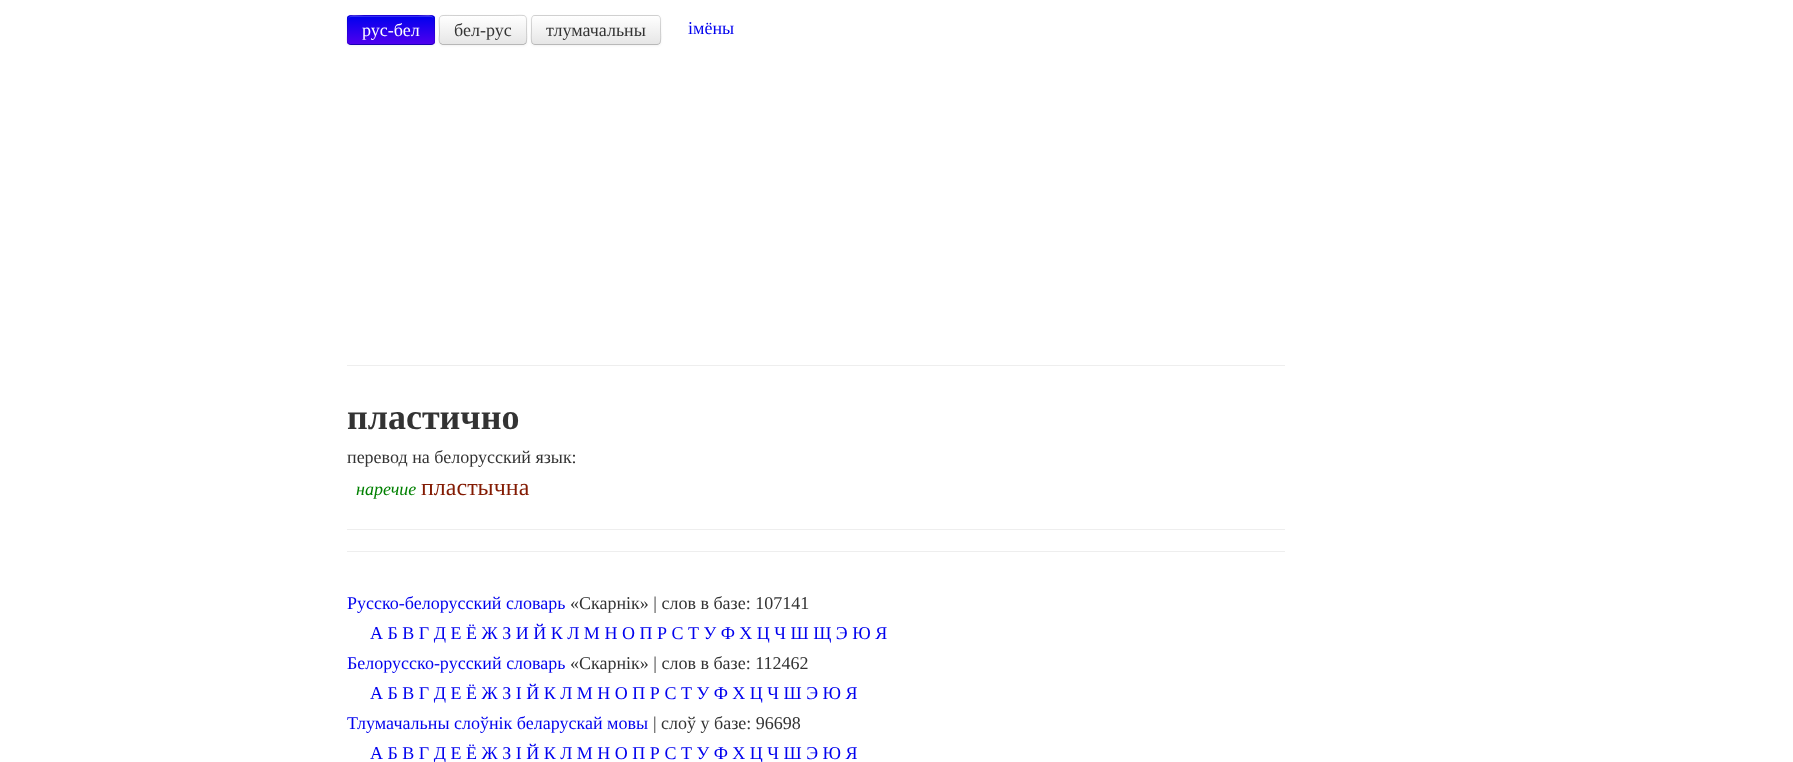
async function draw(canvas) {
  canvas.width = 1793;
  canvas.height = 762;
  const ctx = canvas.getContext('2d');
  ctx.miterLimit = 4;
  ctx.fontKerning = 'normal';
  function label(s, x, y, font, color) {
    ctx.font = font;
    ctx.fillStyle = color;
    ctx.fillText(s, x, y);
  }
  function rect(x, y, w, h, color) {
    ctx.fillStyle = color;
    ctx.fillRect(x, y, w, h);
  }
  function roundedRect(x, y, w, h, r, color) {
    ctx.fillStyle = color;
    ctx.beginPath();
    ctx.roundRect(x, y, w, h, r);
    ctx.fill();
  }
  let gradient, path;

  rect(0, 0, 1793, 762, '#fff');
  ctx.fillStyle = '#0000000d';
  ctx.filter = 'blur(1px)';
  ctx.beginPath();
  ctx.roundRect(347, 16, 88, 30, 4);
  ctx.fill();
  ctx.filter = 'none';
  roundedRect(347, 15, 88, 30, 4, '#2000ee');
  ctx.save();
  ctx.beginPath();
  ctx.roundRect(347, 15, 88, 30, 4);
  ctx.clip();
  gradient = ctx.createLinearGradient(391, 16, 391, 44);
  gradient.addColorStop(0, '#00e');
  gradient.addColorStop(1, '#4f00ee');
  ctx.fillStyle = gradient;
  ctx.fillRect(347, 16, 88, 28);
  ctx.restore();
  ctx.fillStyle = '#ffffff33';
  path = new Path2D('M351 17H431C433 17 434 18 434 20C434 12 421 16 418 16H364C361 16 348 12 348 20C348 18 349 17 351 17Z');
  ctx.fill(path);
  path = new Path2D('M433.5 43.5L431.5 44.5H350.5L348.5 43.5');
  ctx.strokeStyle = '#00000040';
  ctx.stroke(path);
  path = new Path2D('M348.5 43.5C346 41 347.5 36.5 347.5 33.5C347.5 13 343.5 15.5 364.5 15.5H417.5C436.5 15.5 434.5 12.5 434.5 30C434.5 33 435.5 41.5 433.5 43.5');
  ctx.strokeStyle = '#0000001a';
  ctx.stroke(path);
  label('рус-бел', 362, 36, '18px Liberation Serif', '#fff');
  ctx.fillStyle = '#0000000d';
  ctx.filter = 'blur(1px)';
  ctx.beginPath();
  ctx.roundRect(439, 16, 88, 30, 4);
  ctx.fill();
  ctx.filter = 'none';
  roundedRect(439, 15, 88, 30, 4, '#f5f5f5');
  ctx.save();
  ctx.beginPath();
  ctx.roundRect(439, 15, 88, 30, 4);
  ctx.clip();
  gradient = ctx.createLinearGradient(483, 16, 483, 44);
  gradient.addColorStop(0, '#fff');
  gradient.addColorStop(1, '#e6e6e6');
  ctx.fillStyle = gradient;
  ctx.fillRect(439, 16, 88, 28);
  ctx.restore();
  path = new Path2D('M525.5 43.5L523.5 44.5H442.5L440.5 43.5');
  ctx.strokeStyle = '#00000040';
  ctx.stroke(path);
  path = new Path2D('M440.5 43.5C438 41 439.5 36.5 439.5 33.5C439.5 13 435.5 15.5 456.5 15.5H509.5C528.5 15.5 526.5 12.5 526.5 30C526.5 33 527.5 41.5 525.5 43.5');
  ctx.strokeStyle = '#00000026';
  ctx.stroke(path);
  label('бел-рус', 454, 36, '18px Liberation Serif', '#333');
  ctx.fillStyle = '#0000000d';
  ctx.filter = 'blur(1px)';
  ctx.beginPath();
  ctx.roundRect(531, 16, 130, 30, 4);
  ctx.fill();
  ctx.filter = 'none';
  roundedRect(531, 15, 130, 30, 4, '#f5f5f5');
  ctx.save();
  ctx.beginPath();
  ctx.roundRect(531, 15, 130, 30, 4);
  ctx.clip();
  gradient = ctx.createLinearGradient(596, 16, 596, 44);
  gradient.addColorStop(0, '#fff');
  gradient.addColorStop(1, '#e6e6e6');
  ctx.fillStyle = gradient;
  ctx.fillRect(531, 16, 130, 28);
  ctx.restore();
  path = new Path2D('M659.5 43.5C659 44 658 44.5 657 44.5H535C534 44.5 533 44 532.5 43.5');
  ctx.strokeStyle = '#b8b8b8';
  ctx.stroke(path);
  path = new Path2D('M532.5 43.5C530.5 41.5 531.5 33 531.5 30V22.5C531.5 20 531 15.5 535 15.5H657C661 15.5 660.5 20 660.5 22.5V30C660.5 33 661.5 41.5 659.5 43.5');
  ctx.strokeStyle = '#00000026';
  ctx.stroke(path);
  label('тлумачальны', 546, 36, '18px Liberation Serif', '#333');
  label('імёны', 688, 34, '18px Liberation Serif', '#00e');
  rect(347, 365, 938, 1, '#eee');
  label('пластично', 347, 429, 'bold 36px Liberation Serif', '#333');
  label('перевод на белорусский язык:', 347, 463, '18px Liberation Serif', '#333');
  label('наречие', 356, 495, 'italic 18px Liberation Serif', '#008000');
  label('пластычна', 421, 495, '24px Liberation Serif', '#831b03');
  rect(347, 529, 938, 1, '#eee');
  rect(347, 551, 938, 1, '#eee');
  label('Русско-белорусский словарь', 347, 609, '18px Liberation Serif', '#00e');
  label('«Скарнік» | слов в базе: 107141', 570, 609, '18px Liberation Serif', '#333');
  label('А Б В Г Д Е Ё Ж З И Й К Л М Н О П Р С Т У Ф Х Ц Ч Ш Щ Э Ю Я', 370, 639, '18px Liberation Serif', '#00e');
  label('Белорусско-русский словарь', 347, 669, '18px Liberation Serif', '#00e');
  label('«Скарнік» | слов в базе: 112462', 570, 669, '18px Liberation Serif', '#333');
  label('А Б В Г Д Е Ё Ж З І Й К Л М Н О П Р С Т У Ф Х Ц Ч Ш Э Ю Я', 370, 699, '18px Liberation Serif', '#00e');
  label('Тлумачальны слоўнік беларускай мовы', 347, 729, '18px Liberation Serif', '#00e');
  label('| слоў у базе: 96698', 653, 729, '18px Liberation Serif', '#333');
  label('А Б В Г Д Е Ё Ж З І Й К Л М Н О П Р С Т У Ф Х Ц Ч Ш Э Ю Я', 370, 759, '18px Liberation Serif', '#00e');
}

draw(document.querySelector('canvas'));
